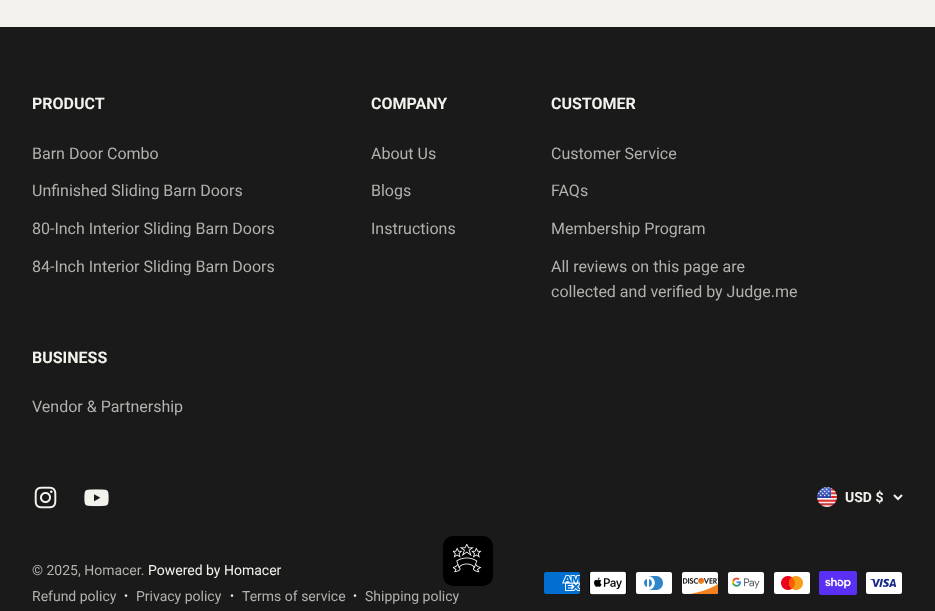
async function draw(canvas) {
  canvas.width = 935;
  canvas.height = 611;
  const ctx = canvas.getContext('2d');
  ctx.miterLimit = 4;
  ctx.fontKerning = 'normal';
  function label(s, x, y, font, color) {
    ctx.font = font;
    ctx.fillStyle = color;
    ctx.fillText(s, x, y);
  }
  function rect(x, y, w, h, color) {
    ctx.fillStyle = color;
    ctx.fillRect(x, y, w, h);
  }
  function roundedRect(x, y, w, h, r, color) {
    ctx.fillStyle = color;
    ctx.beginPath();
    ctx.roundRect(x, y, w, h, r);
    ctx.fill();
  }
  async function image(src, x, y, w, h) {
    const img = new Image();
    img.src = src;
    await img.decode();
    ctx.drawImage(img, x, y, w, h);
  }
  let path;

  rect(0, 0, 935, 611, '#f3f2ec');
  rect(0, 27, 935, 584, '#1a1a1a');
  label('PRODUCT', 32, 109, 'bold 16px Roboto', '#f3f2ec');
  label('Barn Door Combo', 32, 159, '16px Roboto', '#b2b1ad');
  label('Unfinished Sliding Barn Doors', 32, 196, '16px Roboto', '#b2b1ad');
  label('80-Inch Interior Sliding Barn Doors', 32, 234, '16px Roboto', '#b2b1ad');
  label('84-Inch Interior Sliding Barn Doors', 32, 272, '16px Roboto', '#b2b1ad');
  label('COMPANY', 371, 109, 'bold 16px Roboto', '#f3f2ec');
  label('About Us', 371, 159, '16px Roboto', '#b2b1ad');
  label('Blogs', 371, 196, '16px Roboto', '#b2b1ad');
  label('Instructions', 371, 234, '16px Roboto', '#b2b1ad');
  label('CUSTOMER', 551, 109, 'bold 16px Roboto', '#f3f2ec');
  label('Customer Service', 551, 159, '16px Roboto', '#b2b1ad');
  label('FAQs', 551, 196, '16px Roboto', '#b2b1ad');
  label('Membership Program', 551, 234, '16px Roboto', '#b2b1ad');
  label('All reviews on this page are', 551, 272, '16px Roboto', '#b2b1ad');
  label('collected and verified by Judge.me', 551, 297, '16px Roboto', '#b2b1ad');
  label('BUSINESS', 32, 363, 'bold 16px Roboto', '#f3f2ec');
  label('Vendor & Partnership', 32, 412, '16px Roboto', '#b2b1ad');
  await image('assets/img1.png', 34, 486, 23, 23);
  await image('assets/img2.png', 84, 489, 25, 18);
  await image('assets/img3.png', 817, 487, 20, 20);
  label('USD $', 845, 502, 'bold 14px Roboto', '#f3f2ec');
  path = new Path2D('M894 495L898 499L902 495');
  ctx.strokeStyle = '#f3f2ec';
  ctx.lineWidth = 2;
  ctx.stroke(path);
  label('© 2025, Homacer.', 32, 575, '14px Roboto', '#b2b1ad');
  label('Powered by Homacer', 148, 575, '14px Roboto', '#f3f2ec');
  label('Refund policy', 32, 601, '14px Roboto', '#b2b1ad');
  label('•', 124, 600, '12px Roboto', '#f3f2ec');
  label('Privacy policy', 136, 601, '14px Roboto', '#b2b1ad');
  label('•', 230, 600, '12px Roboto', '#f3f2ec');
  label('Terms of service', 242, 601, '14px Roboto', '#b2b1ad');
  label('•', 353, 600, '12px Roboto', '#f3f2ec');
  label('Shipping policy', 365, 601, '14px Roboto', '#b2b1ad');
  await image('assets/img4.png', 544, 572, 36, 22);
  await image('assets/img5.png', 589, 571, 38, 24);
  await image('assets/img6.png', 636, 572, 36, 22);
  await image('assets/img7.png', 682, 572, 36, 22);
  await image('assets/img8.png', 728, 572, 36, 22);
  await image('assets/img9.png', 774, 572, 36, 22);
  await image('assets/img10.png', 819, 571, 38, 24);
  await image('assets/img11.png', 866, 572, 36, 22);
  roundedRect(443, 536, 50, 50, 10, '#000');
  await image('assets/img12.png', 453, 544, 29, 29);
}

draw(document.querySelector('canvas'));
